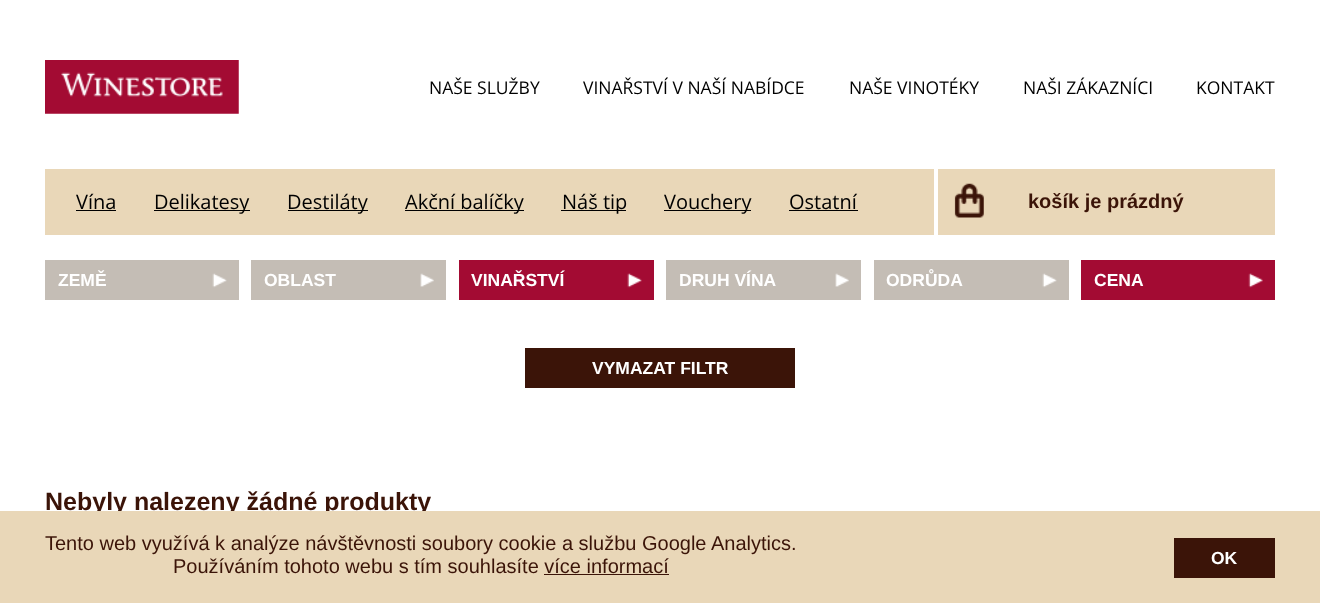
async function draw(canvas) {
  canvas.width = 1320;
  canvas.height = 603;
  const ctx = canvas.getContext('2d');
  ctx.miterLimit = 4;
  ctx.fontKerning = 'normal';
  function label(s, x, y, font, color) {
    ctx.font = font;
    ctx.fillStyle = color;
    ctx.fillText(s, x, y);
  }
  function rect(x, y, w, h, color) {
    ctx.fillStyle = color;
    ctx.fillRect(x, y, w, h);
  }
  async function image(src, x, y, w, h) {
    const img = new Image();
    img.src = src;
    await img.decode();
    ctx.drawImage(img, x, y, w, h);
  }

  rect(0, 0, 1320, 603, '#fff');
  await image('assets/img1.png', 45, 60, 194, 54);
  label('NAŠE SLUŽBY', 429, 94, '17.5px Open Sans', '#000');
  label('VINAŘSTVÍ V NAŠÍ NABÍDCE', 583, 94, '17.5px Open Sans', '#000');
  label('NAŠE VINOTÉKY', 849, 94, '17.5px Open Sans', '#000');
  label('NAŠI ZÁKAZNÍCI', 1023, 94, '17.5px Open Sans', '#000');
  label('KONTAKT', 1196, 94, '17.5px Open Sans', '#000');
  rect(45, 169, 889, 66, '#e9d7b8');
  label('Vína', 76, 209, '20px Open Sans', '#000');
  rect(76, 210, 40, 1, '#000');
  rect(154, 210, 96, 1, '#000');
  label('Delikatesy', 154, 209, '20px Open Sans', '#000');
  rect(288, 210, 80, 1, '#000');
  label('Destiláty', 287, 209, '20px Open Sans', '#000');
  rect(405, 210, 119, 1, '#000');
  label('Akční balíčky', 405, 209, '20px Open Sans', '#000');
  rect(561, 210, 65, 1, '#000');
  label('Náš tip', 562, 209, '20px Open Sans', '#000');
  rect(664, 210, 87, 1, '#000');
  label('Vouchery', 664, 209, '20px Open Sans', '#000');
  label('Ostatní', 789, 209, '20px Open Sans', '#000');
  rect(789, 210, 69, 1, '#000');
  rect(938, 169, 337, 66, '#e9d7b8');
  await image('assets/img2.png', 954, 183, 30, 35);
  label('košík je prázdný', 1028, 208, 'bold 20px Liberation Sans', '#3b1408');
  rect(45, 260, 194, 40, '#c4bdb5');
  await image('assets/img3.png', 212, 273, 15, 15);
  label('ZEMĚ', 58, 286, 'bold 17.5px Liberation Sans', '#fff');
  rect(251, 260, 195, 40, '#c4bdb5');
  await image('assets/img4.png', 420, 273, 14, 14);
  label('OBLAST', 264, 286, 'bold 17.5px Liberation Sans', '#fff');
  rect(459, 260, 195, 40, '#a30b33');
  await image('assets/img5.png', 627, 273, 15, 15);
  label('VINAŘSTVÍ', 471, 286, 'bold 17.5px Liberation Sans', '#fff');
  rect(666, 260, 195, 40, '#c4bdb5');
  await image('assets/img4.png', 835, 273, 14, 14);
  label('DRUH VÍNA', 679, 286, 'bold 17.5px Liberation Sans', '#fff');
  rect(874, 260, 195, 40, '#c4bdb5');
  await image('assets/img6.png', 1042, 273, 15, 15);
  label('ODRŮDA', 886, 286, 'bold 17.5px Liberation Sans', '#fff');
  rect(1081, 260, 194, 40, '#a30b33');
  await image('assets/img7.png', 1248, 273, 15, 15);
  label('CENA', 1094, 286, 'bold 17.5px Liberation Sans', '#fff');
  rect(525, 348, 270, 40, '#3b1408');
  label('VYMAZAT FILTR', 592, 374, 'bold 17.5px Liberation Sans', '#fff');
  label('Nebyly nalezeny žádné produkty', 45, 510, 'bold 25px Liberation Sans', '#3b1408');
  rect(0, 511, 1320, 92, '#e9d7b8');
  label('Tento web využívá k analýze návštěvnosti soubory cookie a službu Google Analytics.', 45, 550, '20px Liberation Sans', '#3b1408');
  label('Používáním tohoto webu s tím souhlasíte více informací', 173, 573, '20px Liberation Sans', '#3b1408');
  rect(544, 574, 125, 1, '#3b1408');
  rect(1174, 538, 101, 40, '#3b1408');
  label('OK', 1211, 564, 'bold 17.5px Liberation Sans', '#fff');
}

draw(document.querySelector('canvas'));
